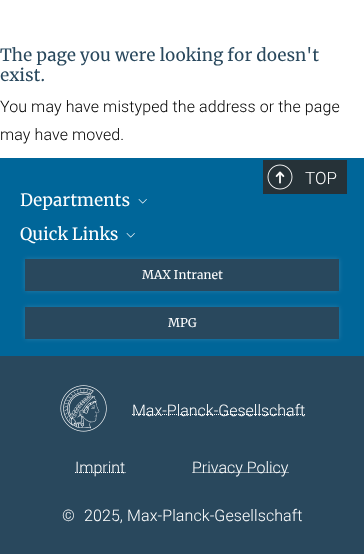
async function draw(canvas) {
  canvas.width = 364;
  canvas.height = 554;
  const ctx = canvas.getContext('2d');
  ctx.miterLimit = 4;
  ctx.fontKerning = 'normal';
  function label(s, x, y, font, color) {
    ctx.font = font;
    ctx.fillStyle = color;
    ctx.fillText(s, x, y);
  }
  function rect(x, y, w, h, color) {
    ctx.fillStyle = color;
    ctx.fillRect(x, y, w, h);
  }
  async function image(src, x, y, w, h) {
    const img = new Image();
    img.src = src;
    await img.decode();
    ctx.drawImage(img, x, y, w, h);
  }
  let path;

  rect(0, 0, 364, 554, '#fff');
  label('The page you were looking for doesn\'t', 0, 61, '17px Merriweather', '#29485d');
  label('exist.', 0, 81, '17px Merriweather', '#29485d');
  ctx.letterSpacing = '0.1px';
  label('You may have mistyped the address or the page', 0, 112, '300 16px Roboto', '#000');
  label('may have moved.', 0, 140, '300 16px Roboto', '#000');
  rect(0, 158, 364, 198, '#069');
  rect(263, 160, 84, 34, '#263238');
  await image('assets/img1.png', 275, 171, 10, 13);
  await image('assets/img2.png', 267, 164, 26, 26);
  ctx.letterSpacing = '0px';
  label('TOP', 305, 184, '300 17px Roboto', '#fff');
  label('Departments', 20, 206, '17px Merriweather', '#fff');
  await image('assets/img3.png', 138, 199, 9, 5);
  label('Quick Links', 20, 240, '17px Merriweather', '#fff');
  await image('assets/img3.png', 126, 233, 9, 5);
  ctx.fillStyle = '#ffffff26';
  ctx.filter = 'blur(2.5px)';
  ctx.beginPath();
  ctx.rect(25, 259, 314, 32);
  ctx.fill();
  ctx.filter = 'none';
  rect(25, 259, 314, 32, '#29485d');
  label('MAX Intranet', 142, 279, '12px Merriweather', '#fff');
  ctx.fillStyle = '#ffffff26';
  ctx.filter = 'blur(2.5px)';
  ctx.beginPath();
  ctx.rect(25, 307, 314, 32);
  ctx.fill();
  ctx.filter = 'none';
  rect(25, 307, 314, 32, '#29485d');
  label('MPG', 168, 327, '12px Merriweather', '#fff');
  rect(0, 356, 364, 198, '#29485d');
  await image('assets/img4.png', 60, 385, 47, 47);
  path = new Path2D('M132 414.5H305');
  ctx.strokeStyle = '#fff';
  ctx.setLineDash([1, 1]);
  ctx.stroke(path);
  label('Max-Planck-Gesellschaft', 132, 416, '300 16px Roboto', '#fff');
  path = new Path2D('M75 472.5H125.5');
  ctx.stroke(path);
  label('Imprint', 75, 473, '300 16px Roboto', '#fff');
  path = new Path2D('M192.5 472.5H289');
  ctx.stroke(path);
  label('Privacy Policy', 192, 473, '300 16px Roboto', '#fff');
  label('©', 62, 521, '300 16px Roboto', '#fff');
  ctx.letterSpacing = '0.1px';
  label('2025, Max-Planck-Gesellschaft', 84, 521, '300 16px Roboto', '#fff');
}

draw(document.querySelector('canvas'));
